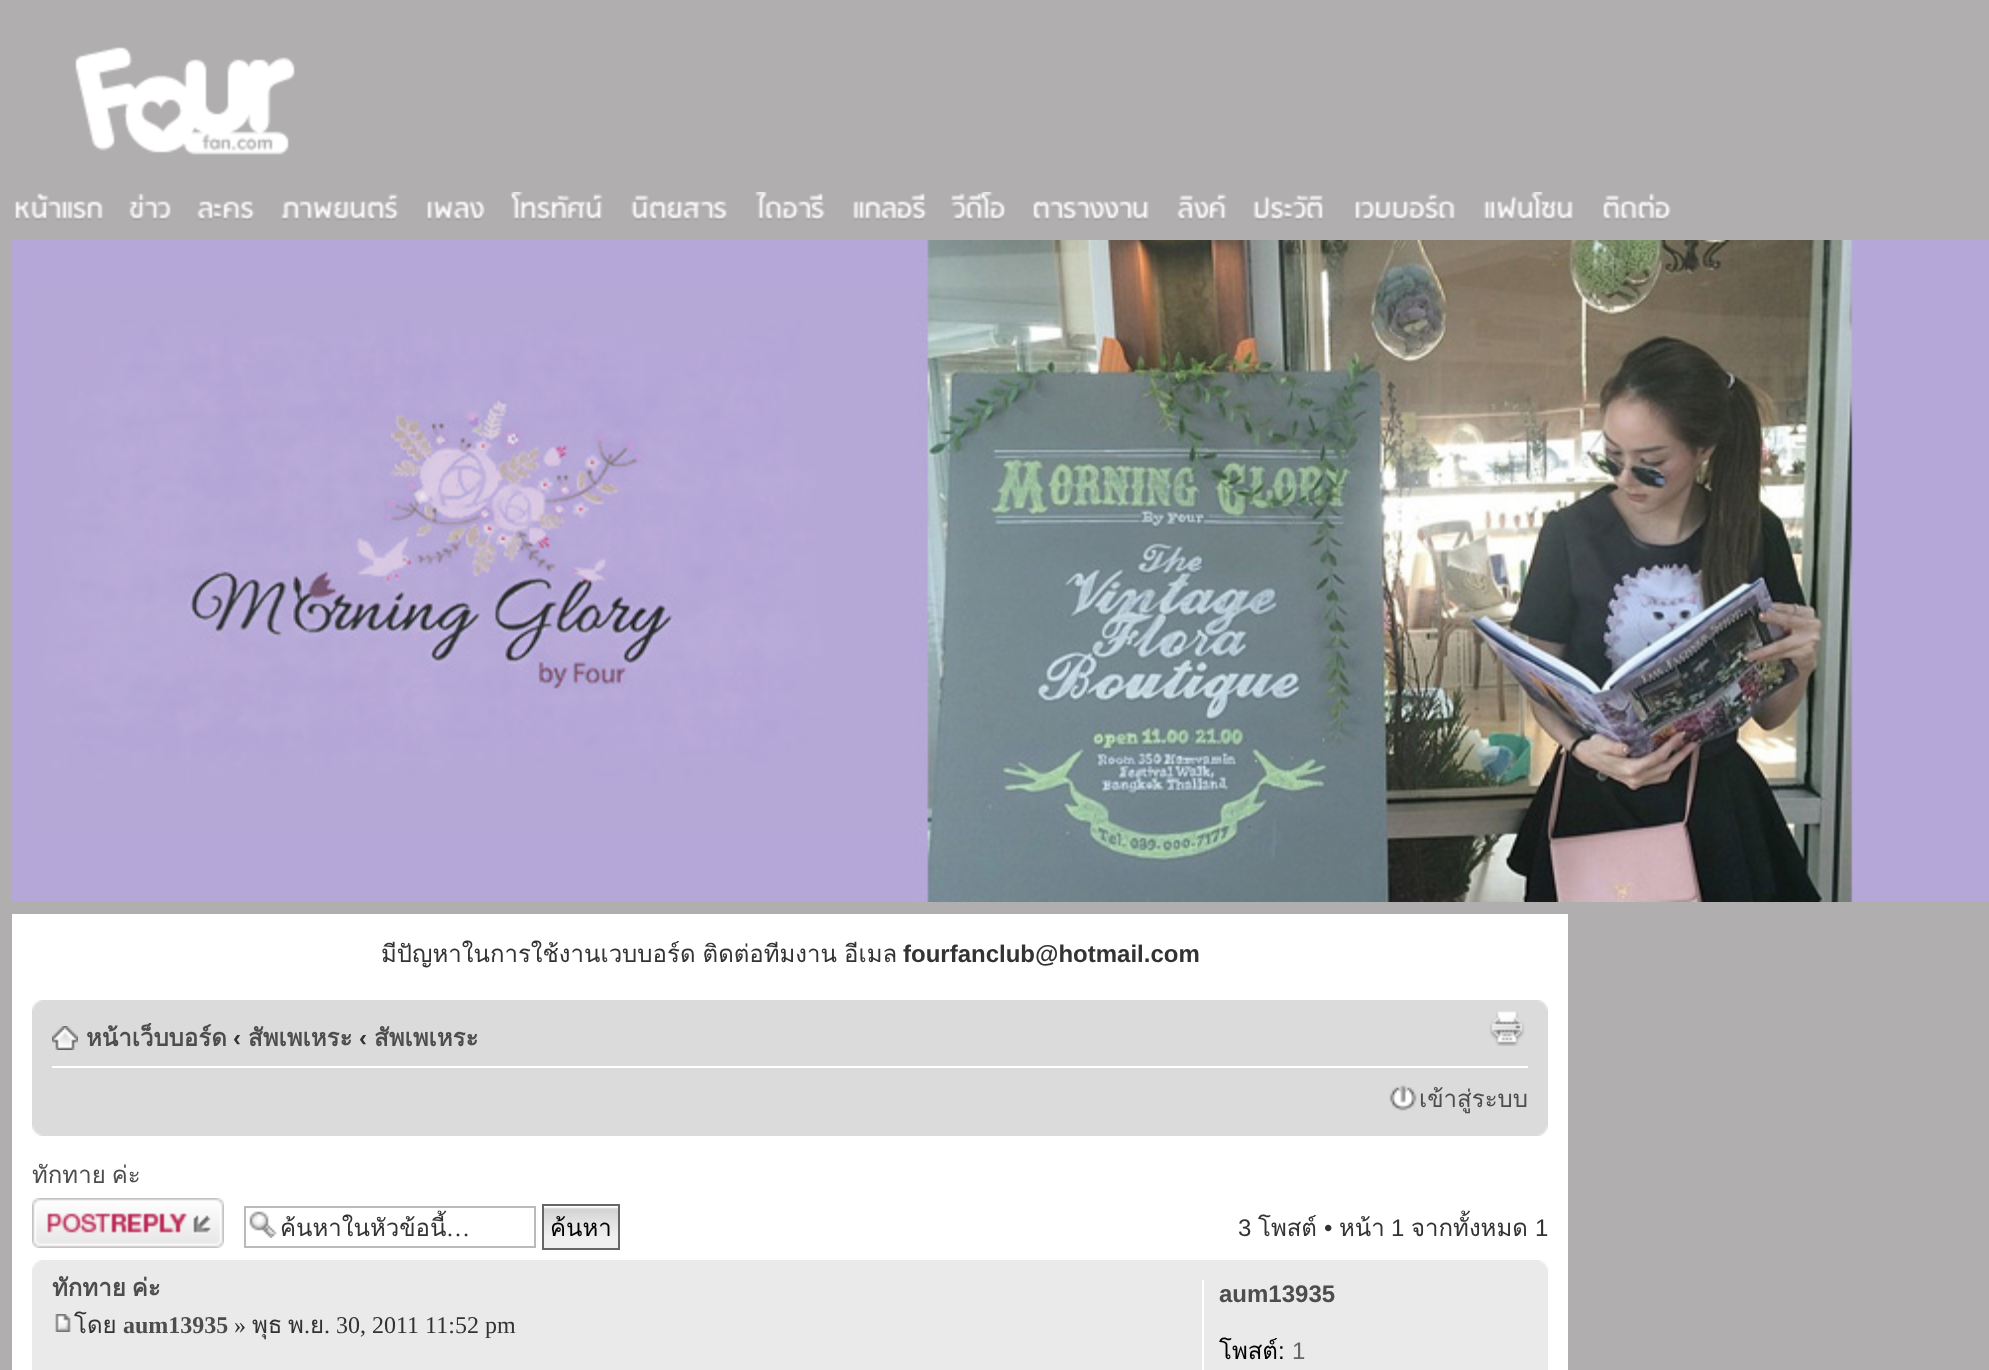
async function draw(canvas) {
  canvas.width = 1989;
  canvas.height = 1370;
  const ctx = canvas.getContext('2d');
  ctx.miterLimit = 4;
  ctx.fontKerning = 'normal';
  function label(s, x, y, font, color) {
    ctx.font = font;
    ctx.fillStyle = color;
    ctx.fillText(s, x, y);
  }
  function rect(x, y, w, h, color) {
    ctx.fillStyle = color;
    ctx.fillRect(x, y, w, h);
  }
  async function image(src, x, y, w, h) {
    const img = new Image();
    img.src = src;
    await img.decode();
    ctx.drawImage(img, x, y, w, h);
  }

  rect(0, 0, 1989, 1370, '#b0aeaf');
  await image('assets/img1.png', 75, 47, 220, 108);
  await image('assets/img2.png', 15, 193, 88, 28);
  await image('assets/img3.png', 129, 193, 42, 28);
  await image('assets/img4.png', 197, 201, 58, 20);
  await image('assets/img5.png', 281, 193, 118, 28);
  await image('assets/img6.png', 427, 201, 58, 20);
  await image('assets/img7.png', 510, 192, 93, 29);
  await image('assets/img8.png', 631, 195, 96, 26);
  await image('assets/img9.png', 755, 192, 70, 29);
  await image('assets/img10.png', 853, 193, 74, 28);
  await image('assets/img11.png', 951, 192, 55, 29);
  await image('assets/img12.png', 1033, 201, 116, 20);
  await image('assets/img13.png', 1177, 193, 50, 28);
  await image('assets/img14.png', 1253, 195, 70, 26);
  await image('assets/img15.png', 1355, 193, 100, 28);
  await image('assets/img16.png', 1483, 192, 90, 29);
  await image('assets/img17.png', 1603, 193, 68, 28);
  await image('assets/img18.png', 12, 240, 1977, 662);
  rect(12, 914, 1556, 456, '#fff');
  ctx.wordSpacing = '-1px';
  label('มีปัญหาในการใช้งานเวบบอร์ด ติดต่อทีมงาน อีเมล', 381, 962, '24px Loma', '#333');
  ctx.wordSpacing = '0px';
  label('fourfanclub@hotmail.com', 903, 962, 'bold 24px Liberation Sans', '#333');
  rect(32, 1000, 1516, 136, '#dbdbdb');
  await image('assets/img19.png', 32, 1000, 10, 10);
  await image('assets/img20.png', 1538, 1000, 10, 10);
  rect(52, 1066, 1476, 2, '#fff');
  await image('assets/img21.png', 52, 1026, 26, 24);
  label('หน้าเว็บบอร์ด', 86, 1046, 'bold 24px Loma', '#4d4d4d');
  label('‹', 233, 1046, 'bold 24px Liberation Sans', '#333');
  label('สัพเพเหระ', 248, 1046, 'bold 24px Loma', '#4d4d4d');
  label('‹', 359, 1046, 'bold 24px Liberation Sans', '#333');
  label('สัพเพเหระ', 374, 1046, 'bold 24px Loma', '#4d4d4d');
  await image('assets/img22.png', 1489, 1011, 36, 35);
  await image('assets/img23.png', 1389, 1085, 28, 26);
  label('เข้าสู่ระบบ', 1419, 1107, '24px Loma', '#4d4d4d');
  await image('assets/img24.png', 32, 1126, 10, 10);
  await image('assets/img25.png', 1538, 1126, 10, 10);
  ctx.wordSpacing = '-2px';
  label('ทักทาย ค่ะ', 32, 1183, '24px Loma', '#4d4d4d');
  await image('assets/img26.png', 32, 1198, 192, 50);
  await image('assets/img27.png', 249, 1211, 28, 27);
  ctx.strokeStyle = '#bababa';
  ctx.lineWidth = 2;
  ctx.strokeRect(245, 1207, 290, 40);
  ctx.save();
  ctx.beginPath();
  ctx.rect(280, 1208, 250, 38);
  ctx.clip();
  ctx.wordSpacing = '0px';
  label('ค้นหาในหัวข้อนี้', 280, 1236, '24px Loma', '#333');
  ctx.restore();
  ctx.wordSpacing = '0px';
  label('…', 446, 1236, '24px Liberation Serif', '#333');
  await image('assets/img28.png', 544, 1206, 74, 42);
  ctx.strokeStyle = '#666';
  ctx.strokeRect(543, 1205, 76, 44);
  ctx.save();
  ctx.beginPath();
  ctx.rect(544, 1206, 74, 42);
  ctx.clip();
  label('ค้นหา', 550, 1236, '24px Loma', '#000');
  ctx.restore();
  label('3', 1238, 1236, '24px Liberation Sans', '#333');
  label('โพสต์', 1258, 1236, '24px Loma', '#333');
  label('•', 1324, 1236, '24px Liberation Sans', '#333');
  label('หน้า', 1339, 1236, '24px Loma', '#333');
  label('1', 1391, 1236, '24px Liberation Sans', '#333');
  label('จากทั้งหมด', 1411, 1236, '24px Loma', '#333');
  label('1', 1535, 1236, '24px Liberation Sans', '#333');
  rect(32, 1260, 1516, 110, '#eaeaea');
  await image('assets/img29.png', 32, 1260, 9, 10);
  await image('assets/img30.png', 1539, 1260, 9, 10);
  ctx.wordSpacing = '-2px';
  label('ทักทาย ค่ะ', 52, 1296, 'bold 24px Loma', '#4d4d4d');
  await image('assets/img31.png', 55, 1314, 16, 18);
  ctx.wordSpacing = '0px';
  label('โดย', 74, 1333, '24px Loma', '#333');
  label('aum13935', 123, 1333, 'bold 24px Liberation Serif', '#4d4d4d');
  label('»', 234, 1333, '24px Liberation Serif', '#333');
  label('พุธ', 252, 1333, '24px Loma', '#333');
  label('พ', 288, 1333, '24px Loma', '#333');
  label('.', 304, 1333, '24px Liberation Serif', '#333');
  label('ย', 310, 1333, '24px Loma', '#333');
  label('. 30, 2011 11:52 pm', 324, 1333, '24px Liberation Serif', '#333');
  rect(1202, 1280, 2, 90, '#fff');
  label('aum13935', 1219, 1302, 'bold 24px Liberation Sans', '#4d4d4d');
  label('โพสต์', 1219, 1359, '24px Loma', '#000');
  label(':', 1278, 1359, '24px Liberation Sans', '#000');
  label('1', 1292, 1359, '24px Liberation Sans', '#666');
}

draw(document.querySelector('canvas'));
